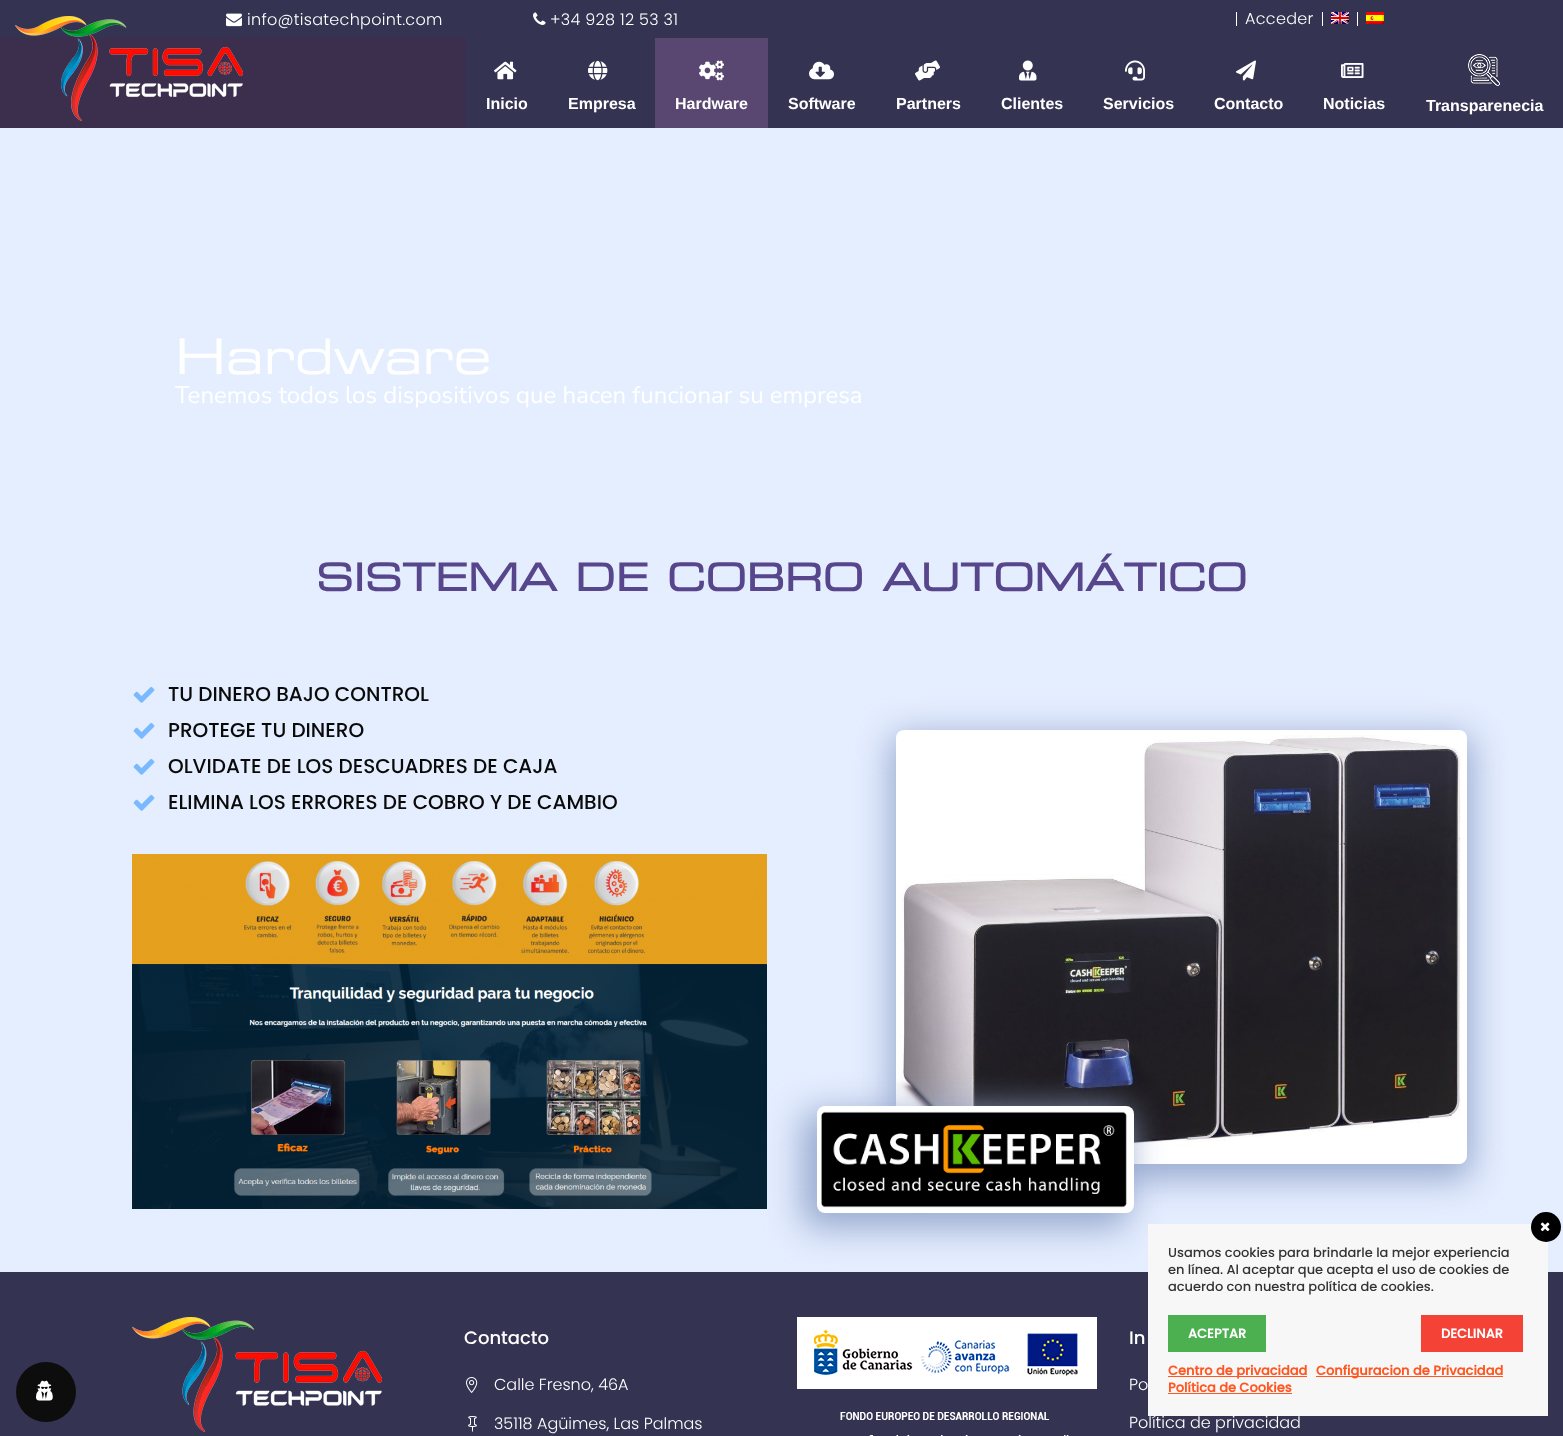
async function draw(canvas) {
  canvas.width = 1563;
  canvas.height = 1436;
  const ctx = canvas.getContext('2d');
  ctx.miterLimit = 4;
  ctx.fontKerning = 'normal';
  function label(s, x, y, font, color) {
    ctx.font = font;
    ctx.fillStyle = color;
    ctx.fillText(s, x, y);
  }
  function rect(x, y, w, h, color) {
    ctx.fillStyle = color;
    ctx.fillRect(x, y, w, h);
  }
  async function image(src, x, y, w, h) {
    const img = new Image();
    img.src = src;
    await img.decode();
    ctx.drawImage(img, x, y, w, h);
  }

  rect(0, 0, 1563, 1436, '#e5eeff');
  rect(0, 0, 1563, 38, '#343352');
  await image('assets/img1.png', 226, 13, 16, 14);
  ctx.letterSpacing = '0.3px';
  label('info@tisatechpoint.com', 247, 25, '300 16px Poppins', '#fff');
  await image('assets/img2.png', 533, 12, 13, 13);
  label('+34 928 12 53 31', 550, 25, '300 16px Poppins', '#fff');
  rect(1236, 12, 1, 14, '#fff');
  label('Acceder', 1245, 24, '300 16px Poppins', '#fff');
  rect(1322, 12, 1, 14, '#fff');
  await image('assets/img3.png', 1331, 12, 18, 12);
  rect(1357, 12, 1, 14, '#fff');
  await image('assets/img4.png', 1366, 12, 18, 12);
  rect(0, 38, 466, 90, '#3c2f4d');
  await image('assets/img5.png', 15, 16, 228, 105);
  rect(466, 38, 1097, 90, '#343352');
  await image('assets/img6.png', 494, 61, 23, 19);
  ctx.letterSpacing = '0px';
  label('Inicio', 486, 109, 'bold 16px Liberation Sans', '#fff');
  await image('assets/img7.png', 588, 60, 20, 21);
  label('Empresa', 568, 109, 'bold 16px Liberation Sans', '#fff');
  rect(655, 38, 113, 90, '#594772');
  await image('assets/img8.png', 699, 60, 25, 21);
  label('Hardware', 675, 109, 'bold 16px Liberation Sans', '#fff');
  await image('assets/img9.png', 809, 61, 25, 19);
  label('Software', 788, 109, 'bold 16px Liberation Sans', '#fff');
  await image('assets/img10.png', 915, 60, 25, 21);
  label('Partners', 896, 109, 'bold 16px Liberation Sans', '#fff');
  await image('assets/img11.png', 1019, 60, 18, 21);
  label('Clientes', 1001, 109, 'bold 16px Liberation Sans', '#fff');
  await image('assets/img12.png', 1125, 60, 20, 21);
  label('Servicios', 1103, 109, 'bold 16px Liberation Sans', '#fff');
  await image('assets/img13.png', 1236, 60, 20, 21);
  label('Contacto', 1214, 109, 'bold 16px Liberation Sans', '#fff');
  await image('assets/img14.png', 1341, 63, 23, 15);
  label('Noticias', 1323, 109, 'bold 16px Liberation Sans', '#fff');
  await image('assets/img15.png', 1468, 54, 32, 32);
  label('Transparenecia', 1426, 111, 'bold 16px Liberation Sans', '#fff');
  label('Hardware', 175, 374, '500 49px "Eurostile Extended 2"', '#fff');
  label('Tenemos todos los dispositivos que hacen funcionar su empresa', 175, 403, '200 24px Nunito', '#fff');
  label('SISTEMA DE COBRO AUTOMÁTICO', 316, 591, 'bold 38px "Eurostile Extended 2"', '#58468c');
  await image('assets/img16.png', 133, 686, 22, 17);
  label('TU DINERO BAJO CONTROL', 168, 701, '500 20px Poppins', '#0a0a0a');
  await image('assets/img16.png', 133, 722, 22, 17);
  label('PROTEGE TU DINERO', 168, 737, '500 20px Poppins', '#0a0a0a');
  await image('assets/img16.png', 133, 758, 22, 17);
  label('OLVIDATE DE LOS DESCUADRES DE CAJA', 168, 773, '500 20px Poppins', '#0a0a0a');
  await image('assets/img16.png', 133, 794, 22, 17);
  label('ELIMINA LOS ERRORES DE COBRO Y DE CAMBIO', 168, 809, '500 20px Poppins', '#0a0a0a');
  await image('assets/img17.png', 132, 854, 635, 355);
  ctx.fillStyle = '#96a8ce';
  ctx.filter = 'blur(17.5px)';
  ctx.beginPath();
  ctx.roundRect(891, 735, 581, 444, 13);
  ctx.fill();
  ctx.filter = 'none';
  await image('assets/img18.png', 896, 730, 571, 434);
  ctx.filter = 'blur(17.5px)';
  ctx.beginPath();
  ctx.roundRect(802, 1111, 327, 117, 13);
  ctx.fill();
  ctx.filter = 'none';
  await image('assets/img19.png', 817, 1106, 317, 107);
  rect(0, 1272, 1563, 164, '#343352');
  await image('assets/img20.png', 132, 1317, 250, 115);
  label('Contacto', 464, 1344, '500 18px Poppins', '#fff');
  await image('assets/img21.png', 466, 1377, 12, 16);
  label('Calle Fresno, 46A', 494, 1390, '300 16px Poppins', '#fff');
  await image('assets/img22.png', 468, 1416, 9, 16);
  label('35118 Agüimes, Las Palmas', 494, 1429, '300 16px Poppins', '#fff');
  await image('assets/img23.png', 797, 1317, 300, 119);
  label('In', 1129, 1344, '500 18px Poppins', '#fff');
  label('Po', 1129, 1390, '300 16px Poppins', '#fff');
  label('Política de privacidad', 1129, 1428, '300 16px Poppins', '#fff');
  ctx.fillStyle = '#0d0d0d';
  ctx.beginPath();
  ctx.arc(46, 1392, 30, 0, 2 * Math.PI);
  ctx.fill();
  await image('assets/img24.png', 36, 1380, 17, 21);
  rect(1148, 1224, 400, 192, '#f7f7f7');
  ctx.fillStyle = '#000';
  ctx.beginPath();
  ctx.arc(1546, 1227, 15, 0, 2 * Math.PI);
  ctx.fill();
  await image('assets/img25.png', 1540, 1222, 10, 10);
  label('Usamos cookies para brindarle la mejor experiencia', 1168, 1257, '500 13px Poppins', '#333');
  label('en línea. Al aceptar que acepta el uso de cookies de', 1168, 1274, '500 13px Poppins', '#333');
  label('acuerdo con nuestra política de cookies.', 1168, 1291, '500 13px Poppins', '#333');
  rect(1168, 1315, 98, 37, '#4caf50');
  label('ACEPTAR', 1188, 1338, 'bold 13px Poppins', '#fff');
  rect(1421, 1315, 102, 37, '#f44336');
  label('DECLINAR', 1441, 1338, 'bold 13px Poppins', '#fff');
  rect(1168, 1376, 139, 1, '#ff5722');
  label('Centro de privacidad', 1168, 1375, 'bold 13px Poppins', '#ff5722');
  rect(1316, 1376, 187, 1, '#ff5722');
  label('Configuracion de Privacidad', 1316, 1375, 'bold 13px Poppins', '#ff5722');
  label('Política de Cookies', 1168, 1392, 'bold 13px Poppins', '#ff5722');
  rect(1168, 1393, 124, 1, '#ff5722');
}

draw(document.querySelector('canvas'));
